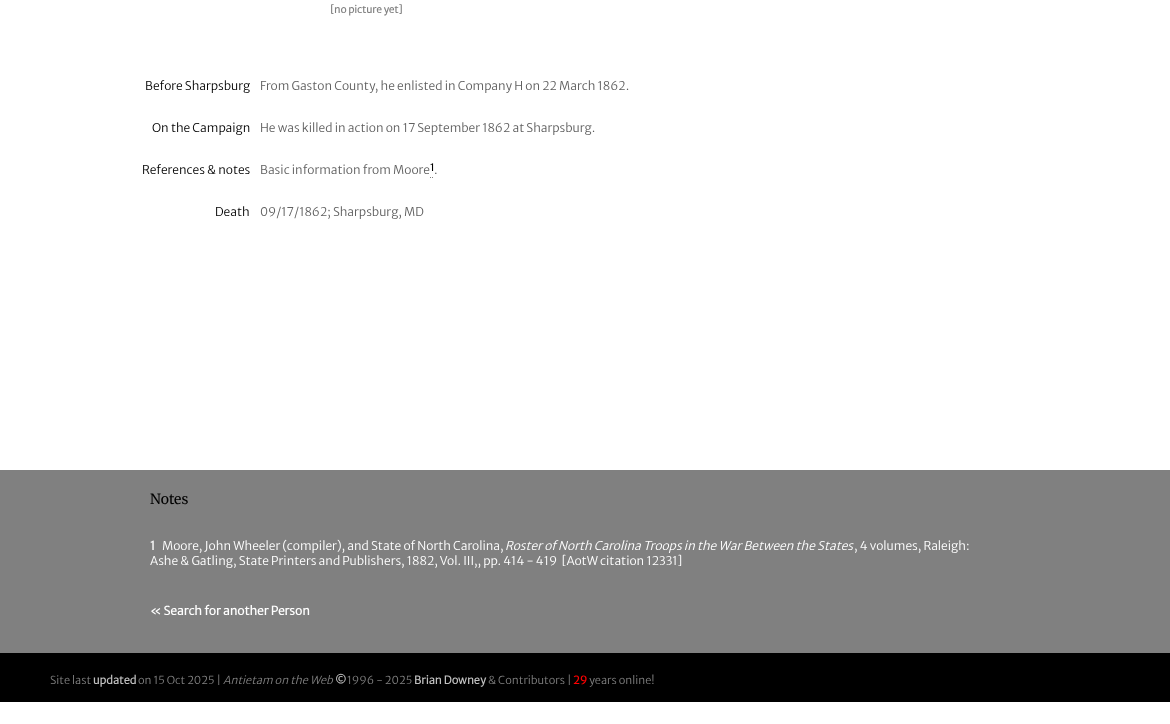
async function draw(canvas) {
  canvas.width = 1170;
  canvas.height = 724;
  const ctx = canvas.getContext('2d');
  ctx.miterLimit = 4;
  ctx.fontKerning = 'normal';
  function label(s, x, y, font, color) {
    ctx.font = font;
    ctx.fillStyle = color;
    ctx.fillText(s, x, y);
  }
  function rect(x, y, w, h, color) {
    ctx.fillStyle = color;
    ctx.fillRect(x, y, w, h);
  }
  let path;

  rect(0, 0, 1170, 724, '#fff');
  label('[no picture yet]', 330, 13, 'bold 10px Merriweather Sans', '#808080');
  label('Before Sharpsburg', 145, 90, '300 12px Merriweather Sans', '#000');
  label('From Gaston County, he enlisted in Company H on 22 March 1862.', 260, 90, '300 12px Merriweather Sans', '#606060');
  label('On the Campaign', 152, 132, '300 12px Merriweather Sans', '#000');
  label('He was killed in action on 17 September 1862 at Sharpsburg.', 260, 132, '300 12px Merriweather Sans', '#606060');
  label('References & notes', 142, 174, '300 12px Merriweather Sans', '#000');
  label('Basic information from Moore', 260, 174, '300 12px Merriweather Sans', '#606060');
  label('1', 430, 171, 'bold 10px Merriweather Sans', '#000');
  path = new Path2D('M430 177.5H431M432 177.5H433');
  ctx.strokeStyle = '#808080';
  ctx.stroke(path);
  label('.', 434, 174, '300 12px Merriweather Sans', '#606060');
  label('Death', 215, 216, '300 12px Merriweather Sans', '#000');
  label('09/17/1862; Sharpsburg, MD', 260, 216, '300 12px Merriweather Sans', '#606060');
  rect(0, 470, 1170, 183, '#808080');
  label('Notes', 150, 504, '300 14px Merriweather', '#000');
  label('1', 150, 550, 'bold 12px Merriweather Sans', '#fff');
  label('Moore, John Wheeler (compiler), and State of North Carolina,', 162, 550, '300 12px Merriweather Sans', '#fff');
  label('Roster of North Carolina Troops in the War Between the States', 505, 550, 'italic 300 12px Merriweather Sans', '#fff');
  label(', 4 volumes, Raleigh:', 854, 550, '300 12px Merriweather Sans', '#fff');
  label('Ashe & Gatling, State Printers and Publishers, 1882, Vol. III,, pp. 414 - 419  [AotW citation 12331]', 150, 565, '300 12px Merriweather Sans', '#fff');
  label('« Search for another Person', 150, 615, 'bold 12px Merriweather Sans', '#fff');
  rect(0, 653, 1170, 49, '#000');
  label('Site last', 50, 684, '300 11px Merriweather Sans', '#808080');
  label('updated', 93, 684, 'bold 11px Merriweather Sans', '#c0c0c0');
  label('on 15 Oct 2025 |', 138, 684, '300 11px Merriweather Sans', '#808080');
  label('Antietam on the Web', 223, 684, 'italic 300 11px Merriweather Sans', '#808080');
  label('©', 335, 684, 'bold 11px Merriweather Sans', '#c0c0c0');
  label('1996 - 2025', 347, 684, '300 11px Merriweather Sans', '#808080');
  label('Brian Downey', 414, 684, 'bold 11px Merriweather Sans', '#c0c0c0');
  label('& Contributors |', 488, 684, '300 11px Merriweather Sans', '#808080');
  label('29', 573, 684, 'bold 11px Merriweather Sans', '#f00');
  label('years online!', 589, 684, '300 11px Merriweather Sans', '#808080');
}

draw(document.querySelector('canvas'));
